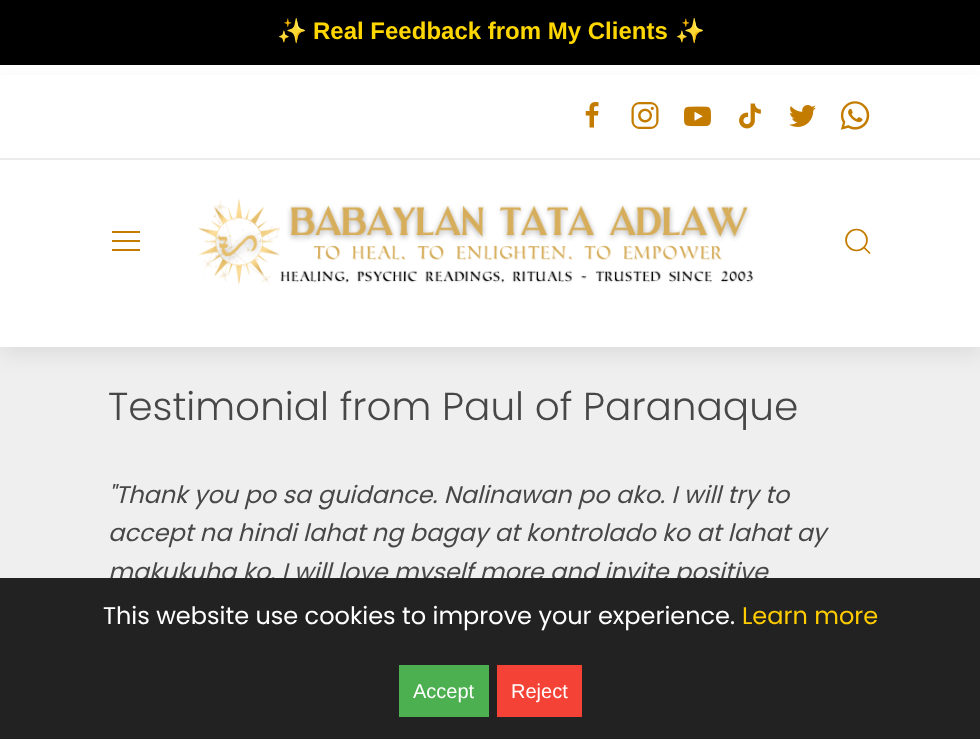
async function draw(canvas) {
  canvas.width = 980;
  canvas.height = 739;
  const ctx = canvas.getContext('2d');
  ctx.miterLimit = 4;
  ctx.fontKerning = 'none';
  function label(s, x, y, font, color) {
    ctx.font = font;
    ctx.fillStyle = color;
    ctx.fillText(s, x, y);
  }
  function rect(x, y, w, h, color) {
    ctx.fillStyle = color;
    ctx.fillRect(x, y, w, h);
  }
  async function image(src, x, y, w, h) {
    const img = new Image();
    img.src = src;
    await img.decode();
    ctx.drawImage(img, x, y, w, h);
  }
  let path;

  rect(0, 0, 980, 739, '#fff');
  rect(0, 347, 980, 231, '#efefef');
  ctx.fillStyle = '#00000014';
  ctx.filter = 'blur(11px)';
  ctx.beginPath();
  ctx.rect(0, 83, 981, 271);
  ctx.fill();
  ctx.filter = 'none';
  rect(0, 0, 980, 65, '#000');
  label('✨', 277, 39, 'bold 24px Noto Color Emoji', '#ffd700');
  label('Real Feedback from My Clients', 313, 39, 'bold 24px Liberation Sans', '#ffd700');
  label('✨', 675, 39, 'bold 24px Noto Color Emoji', '#ffd700');
  label('Testimonial from Paul of Paranaque', 108, 420, '300 39px Poppins', '#474747');
  label('"Thank you po sa guidance. Nalinawan po ako. I will try to', 108, 503, 'italic 24px Poppins', '#474747');
  label('accept na hindi lahat ng bagay at kontrolado ko at lahat ay', 108, 541, 'italic 24px Poppins', '#474747');
  label('makukuha ko. I will love myself more and invite positive', 108, 580, 'italic 24px Poppins', '#474747');
  rect(0, 75, 980, 272, '#fff');
  rect(0, 158, 980, 2, '#ebebeb');
  await image('assets/img1.png', 585, 102, 14, 26);
  await image('assets/img2.png', 631, 102, 28, 27);
  await image('assets/img3.png', 684, 106, 27, 21);
  await image('assets/img4.png', 739, 103, 22, 26);
  await image('assets/img5.png', 789, 105, 27, 22);
  await image('assets/img6.png', 840, 101, 30, 29);
  rect(112, 231, 28, 2, '#c47c00');
  rect(112, 240, 28, 2, '#c47c00');
  rect(112, 249, 28, 2, '#c47c00');
  await image('assets/img7.png', 198, 198, 556, 87);
  ctx.beginPath();
  ctx.arc(856.5, 240, 10.5, 0, 2 * Math.PI);
  ctx.strokeStyle = '#c47c00';
  ctx.lineWidth = 1.7;
  ctx.stroke();
  path = new Path2D('M864 247.5L870 253.5Z');
  ctx.stroke(path);
  rect(0, 578, 980, 161, '#222');
  label('This website use cookies to improve your experience.', 103, 624, '24px Poppins', '#fff');
  label('Learn more', 742, 624, '24px Poppins', '#fc0');
  rect(399, 665, 90, 52, '#4caf50');
  label('Accept', 413, 698, '20px Liberation Sans', '#fff');
  rect(497, 665, 85, 52, '#f44336');
  label('Reject', 511, 698, '20px Liberation Sans', '#fff');
}

draw(document.querySelector('canvas'));
